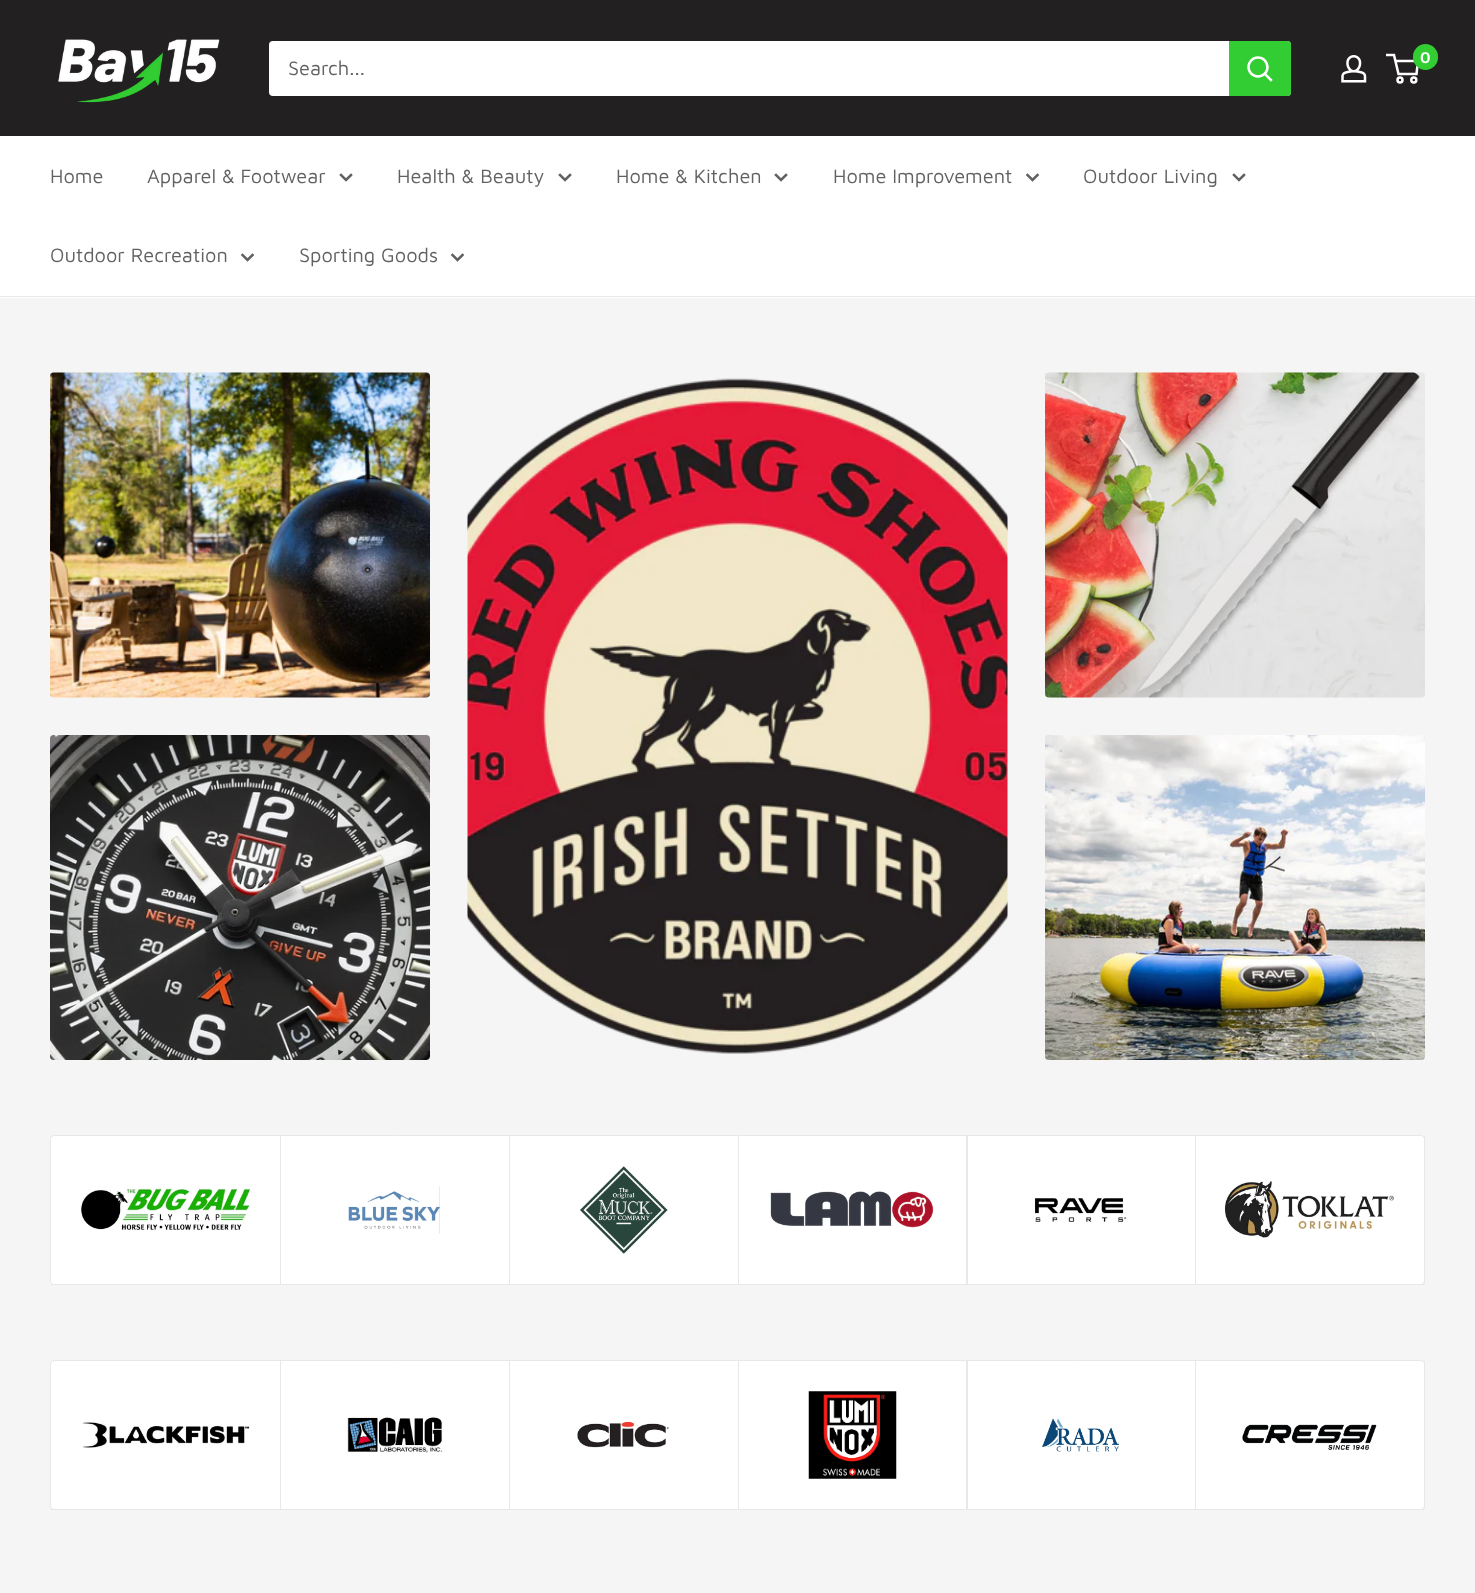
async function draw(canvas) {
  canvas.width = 1475;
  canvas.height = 1593;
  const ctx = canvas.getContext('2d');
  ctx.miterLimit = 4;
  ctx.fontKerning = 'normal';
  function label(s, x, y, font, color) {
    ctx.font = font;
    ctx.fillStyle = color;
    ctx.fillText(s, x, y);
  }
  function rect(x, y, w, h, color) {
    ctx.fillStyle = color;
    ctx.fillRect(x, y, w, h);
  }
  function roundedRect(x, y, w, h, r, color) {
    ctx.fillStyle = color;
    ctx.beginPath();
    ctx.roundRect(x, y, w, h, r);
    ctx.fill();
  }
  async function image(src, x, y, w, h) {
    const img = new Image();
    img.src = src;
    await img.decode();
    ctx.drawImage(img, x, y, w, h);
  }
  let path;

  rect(0, 0, 1475, 1593, '#f5f5f5');
  rect(0, 0, 1475, 136, '#222021');
  await image('assets/img1.png', 58, 39, 162, 64);
  await image('assets/img2.png', 1341, 55, 26, 28);
  ctx.beginPath();
  ctx.arc(1400, 80, 2.5, 0, 2 * Math.PI);
  ctx.strokeStyle = '#fff';
  ctx.lineWidth = 2.5;
  ctx.stroke();
  ctx.beginPath();
  ctx.arc(1413.8, 80, 2.5, 0, 2 * Math.PI);
  ctx.stroke();
  path = new Path2D('M1395.5 61H1418L1416.5 74H1398.5L1394 55H1386');
  ctx.stroke(path);
  roundedRect(1413, 44, 25, 26, 12.5, '#32cd33');
  label('0', 1420, 63, '600 16px Maven Pro', '#fff');
  roundedRect(269, 41, 1022, 55, 4, '#fff');
  label('Search...', 288, 75, '20px Maven Pro', '#616161');
  ctx.fillStyle = '#32cd33';
  ctx.beginPath();
  ctx.roundRect(1229, 41, 62, 55, [0, 4, 4, 0]);
  ctx.fill();
  path = new Path2D('M1271 80L1265 74');
  ctx.lineCap = 'square';
  ctx.stroke(path);
  ctx.beginPath();
  ctx.arc(1258, 67, 9.5, 0, 2 * Math.PI);
  ctx.stroke();
  rect(0, 136, 1475, 162, '#fff');
  rect(0, 296, 1475, 1, '#e8e8e8');
  label('Home', 50, 183, '20px Maven Pro', '#616161');
  label('Apparel & Footwear', 147, 183, '20px Maven Pro', '#616161');
  path = new Path2D('M351 175L346 180L341 175');
  ctx.strokeStyle = '#616161';
  ctx.stroke(path);
  label('Health & Beauty', 397, 183, '20px Maven Pro', '#616161');
  path = new Path2D('M570 175L565 180L560 175');
  ctx.stroke(path);
  label('Home & Kitchen', 616, 183, '20px Maven Pro', '#616161');
  path = new Path2D('M786 175L781 180L776 175');
  ctx.stroke(path);
  label('Home Improvement', 833, 183, '20px Maven Pro', '#616161');
  path = new Path2D('M1037.5 175L1032.5 180L1027.5 175');
  ctx.stroke(path);
  label('Outdoor Living', 1083, 183, '20px Maven Pro', '#616161');
  path = new Path2D('M1244 175L1239 180L1234 175');
  ctx.stroke(path);
  label('Outdoor Recreation', 50, 262, '20px Maven Pro', '#616161');
  path = new Path2D('M252.5 255L247.5 260L242.5 255');
  ctx.stroke(path);
  label('Sporting Goods', 299, 262, '20px Maven Pro', '#616161');
  path = new Path2D('M462.5 255L457.5 260L452.5 255');
  ctx.stroke(path);
  await image('assets/img3.png', 50, 372, 380, 326);
  await image('assets/img4.png', 50, 735, 380, 325);
  await image('assets/img5.png', 467, 378, 541, 676);
  await image('assets/img6.png', 1045, 372, 380, 326);
  await image('assets/img7.png', 1045, 735, 380, 325);
  ctx.fillStyle = '#fff';
  ctx.beginPath();
  ctx.roundRect(50.5, 1135.5, 1374, 149, 3.5);
  ctx.fill();
  ctx.strokeStyle = '#e8e8e8';
  ctx.lineWidth = 1;
  ctx.stroke();
  ctx.fillStyle = '#e8e8e8';
  path = new Path2D('M51 1138V1285H280V1284H51Z');
  ctx.fill(path);
  path = new Path2D('M53 1136H280V1284H53H281V1136Z');
  ctx.fill(path);
  await image('assets/img8.png', 81, 1188, 169, 42);
  path = new Path2D('M281 1136H509V1284H281H510V1136Z');
  ctx.fill(path);
  await image('assets/img9.png', 348, 1186, 92, 48);
  path = new Path2D('M510 1136H738V1284H510H739V1136Z');
  ctx.fill(path);
  await image('assets/img10.png', 580, 1166, 88, 88);
  path = new Path2D('M739 1136H966V1284H739H968V1136Z');
  ctx.fill(path);
  await image('assets/img11.png', 770, 1191, 164, 37);
  path = new Path2D('M968 1136H1195V1284H968H1196V1136Z');
  ctx.fill(path);
  await image('assets/img12.png', 1035, 1198, 92, 24);
  path = new Path2D('M1195 1284V1285H1424V1138V1284Z');
  ctx.fill(path);
  path = new Path2D('M1196 1136H1424V1284H1196H1425V1136Z');
  ctx.fill(path);
  await image('assets/img13.png', 1225, 1181, 169, 57);
  ctx.fillStyle = '#fff';
  ctx.beginPath();
  ctx.roundRect(50.5, 1360.5, 1374, 149, 3.5);
  ctx.fill();
  ctx.stroke();
  ctx.fillStyle = '#e8e8e8';
  path = new Path2D('M51 1363V1510H280V1509H51Z');
  ctx.fill(path);
  path = new Path2D('M53 1361H280V1509H53H281V1361Z');
  ctx.fill(path);
  await image('assets/img14.png', 82, 1421, 168, 27);
  path = new Path2D('M281 1361H509V1509H281H510V1361Z');
  ctx.fill(path);
  await image('assets/img15.png', 347, 1417, 96, 36);
  path = new Path2D('M510 1361H738V1509H510H739V1361Z');
  ctx.fill(path);
  await image('assets/img16.png', 577, 1421, 92, 27);
  path = new Path2D('M739 1361H966V1509H739H968V1361Z');
  ctx.fill(path);
  await image('assets/img17.png', 808, 1391, 89, 88);
  path = new Path2D('M968 1361H1195V1509H968H1196V1361Z');
  ctx.fill(path);
  await image('assets/img18.png', 1042, 1418, 77, 34);
  path = new Path2D('M1195 1509V1510H1424V1363V1509Z');
  ctx.fill(path);
  path = new Path2D('M1196 1361H1424V1509H1196H1425V1361Z');
  ctx.fill(path);
  await image('assets/img19.png', 1242, 1424, 135, 26);
}

draw(document.querySelector('canvas'));
